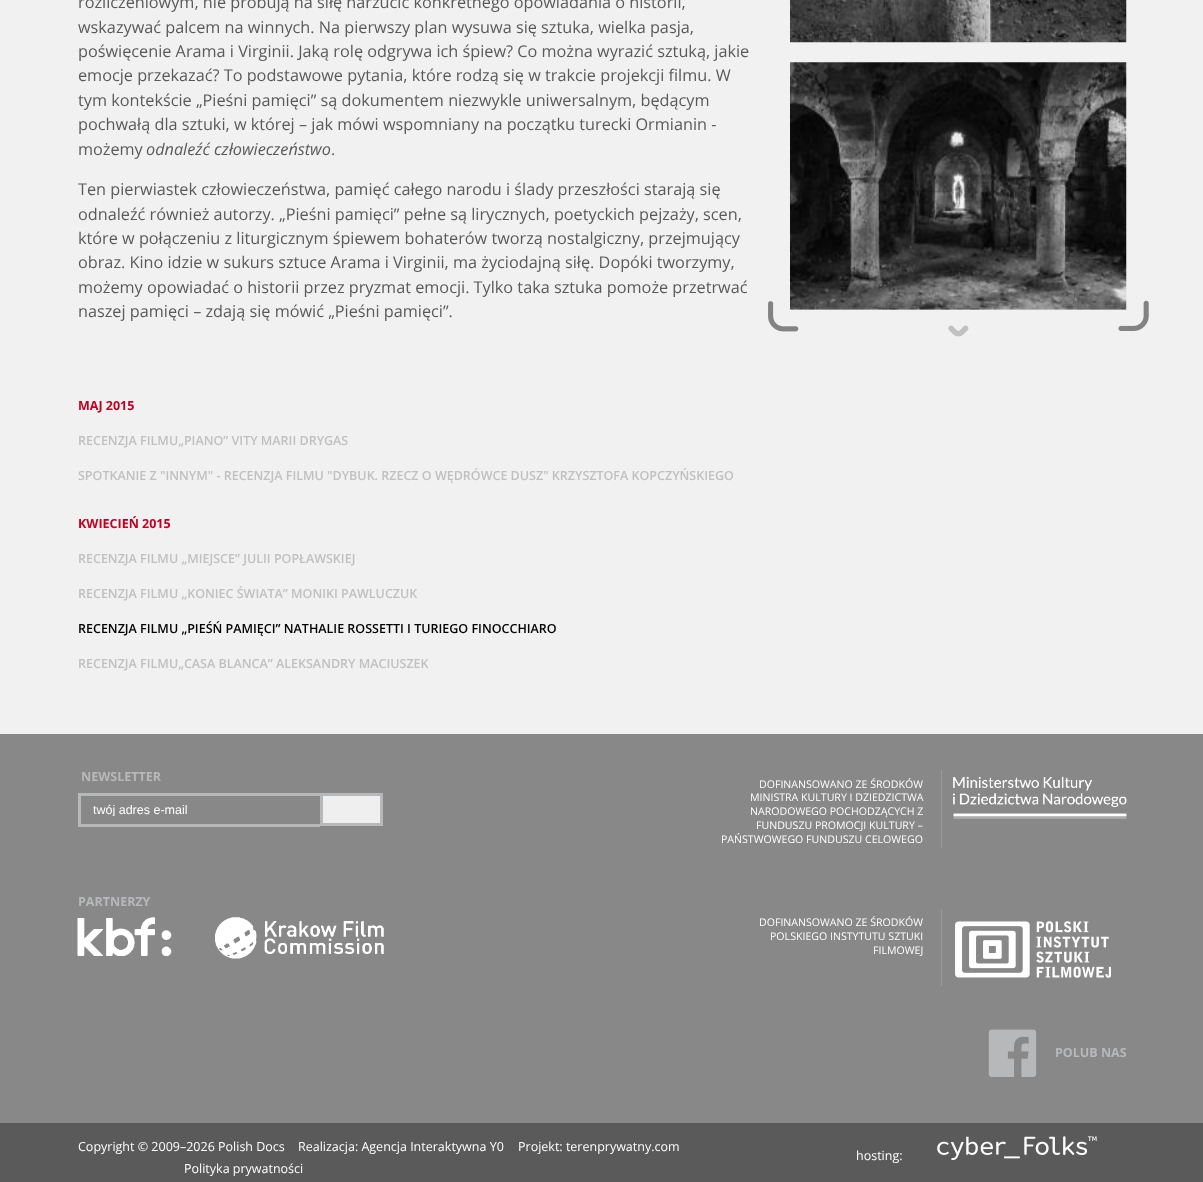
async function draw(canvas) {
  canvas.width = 1203;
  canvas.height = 1182;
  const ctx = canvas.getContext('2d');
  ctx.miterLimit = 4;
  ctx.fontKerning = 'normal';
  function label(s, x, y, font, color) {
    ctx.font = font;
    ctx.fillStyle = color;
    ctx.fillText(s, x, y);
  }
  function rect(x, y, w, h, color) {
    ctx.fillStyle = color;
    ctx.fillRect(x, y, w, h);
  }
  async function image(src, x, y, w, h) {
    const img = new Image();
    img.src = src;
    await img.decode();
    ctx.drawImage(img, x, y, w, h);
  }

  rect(0, 0, 1203, 1182, '#f1f1f1');
  label('rozliczeniowym, nie próbują na siłę narzucić konkretnego opowiadania o historii,', 78, 8, '16.25px Open Sans', '#5a5a5a');
  label('wskazywać palcem na winnych. Na pierwszy plan wysuwa się sztuka, wielka pasja,', 78, 33, '16.25px Open Sans', '#5a5a5a');
  label('poświęcenie Arama i Virginii. Jaką rolę odgrywa ich śpiew? Co można wyrazić sztuką, jakie', 78, 57, '16.25px Open Sans', '#5a5a5a');
  label('emocje przekazać? To podstawowe pytania, które rodzą się w trakcie projekcji filmu. W', 78, 81, '16.25px Open Sans', '#5a5a5a');
  label('tym kontekście „Pieśni pamięci” są dokumentem niezwykle uniwersalnym, będącym', 78, 106, '16.25px Open Sans', '#5a5a5a');
  label('pochwałą dla sztuki, w której – jak mówi wspomniany na początku turecki Ormianin -', 78, 130, '16.25px Open Sans', '#5a5a5a');
  label('możemy', 78, 155, '16.25px Open Sans', '#5a5a5a');
  label('odnaleźć człowieczeństwo', 146, 155, 'italic 16.25px Open Sans', '#5a5a5a');
  label('.', 331, 155, '16.25px Open Sans', '#5a5a5a');
  label('Ten pierwiastek człowieczeństwa, pamięć całego narodu i ślady przeszłości starają się', 78, 195, '16.25px Open Sans', '#5a5a5a');
  label('odnaleźć również autorzy. „Pieśni pamięci” pełne są lirycznych, poetyckich pejzaży, scen,', 78, 220, '16.25px Open Sans', '#5a5a5a');
  label('które w połączeniu z liturgicznym śpiewem bohaterów tworzą nostalgiczny, przejmujący', 78, 244, '16.25px Open Sans', '#5a5a5a');
  label('obraz. Kino idzie w sukurs sztuce Arama i Virginii, ma życiodajną siłę. Dopóki tworzymy,', 78, 268, '16.25px Open Sans', '#5a5a5a');
  label('możemy opowiadać o historii przez pryzmat emocji. Tylko taka sztuka pomoże przetrwać', 78, 293, '16.25px Open Sans', '#5a5a5a');
  label('naszej pamięci – zdają się mówić „Pieśni pamięci”.', 78, 317, '16.25px Open Sans', '#5a5a5a');
  await image('assets/img1.png', 790, 0, 337, 43);
  await image('assets/img2.png', 790, 62, 337, 248);
  await image('assets/img3.png', 948, 325, 21, 12);
  await image('assets/img4.png', 768, 301, 31, 31);
  await image('assets/img5.png', 1118, 300, 31, 31);
  label('MAJ 2015', 78, 410, 'bold 12.5px Open Sans', '#c10022');
  label('RECENZJA FILMU„PIANO” VITY MARII DRYGAS', 78, 445, '600 12.5px Open Sans', '#c1c0c1');
  label('SPOTKANIE Z "INNYM" - RECENZJA FILMU "DYBUK. RZECZ O WĘDRÓWCE DUSZ" KRZYSZTOFA KOPCZYŃSKIEGO', 78, 480, '600 12.5px Open Sans', '#c1c0c1');
  label('KWIECIEŃ 2015', 78, 528, 'bold 12.5px Open Sans', '#c10022');
  label('RECENZJA FILMU „MIEJSCE” JULII POPŁAWSKIEJ', 78, 563, '600 12.5px Open Sans', '#c1c0c1');
  label('RECENZJA FILMU „KONIEC ŚWIATA” MONIKI PAWLUCZUK', 78, 598, '600 12.5px Open Sans', '#c1c0c1');
  label('RECENZJA FILMU „PIEŚŃ PAMIĘCI” NATHALIE ROSSETTI I TURIEGO FINOCCHIARO', 78, 633, '600 12.5px Open Sans', '#000');
  label('RECENZJA FILMU„CASA BLANCA” ALEKSANDRY MACIUSZEK', 78, 668, '600 12.5px Open Sans', '#c1c0c1');
  rect(0, 734, 1203, 389, '#888');
  label('NEWSLETTER', 81, 781, 'bold 12.5px Open Sans', '#b7b8ba');
  rect(78, 793, 242, 3, '#b7b8ba');
  rect(78, 824, 242, 3, '#b7b8ba');
  rect(78, 793, 3, 33, '#b7b8ba');
  ctx.save();
  ctx.beginPath();
  ctx.rect(93, 803, 225, 13);
  ctx.clip();
  label('twój adres e-mail', 93, 814, '12.5px Liberation Sans', '#fff');
  ctx.restore();
  ctx.fillStyle = '#efefef';
  ctx.beginPath();
  ctx.rect(321.5, 794.5, 60, 30);
  ctx.fill();
  ctx.strokeStyle = '#b7b8ba';
  ctx.lineWidth = 3;
  ctx.stroke();
  rect(941, 770, 1, 78, '#9b9b9b');
  label('DOFINANSOWANO ZE ŚRODKÓW', 759, 788, '10.6px Open Sans', '#fff');
  label('MINISTRA KULTURY I DZIEDZICTWA', 750, 801, '10.6px Open Sans', '#fff');
  label('NARODOWEGO POCHODZĄCYCH Z', 750, 815, '10.6px Open Sans', '#fff');
  label('FUNDUSZU PROMOCJI KULTURY –', 756, 829, '10.6px Open Sans', '#fff');
  label('PAŃSTWOWEGO FUNDUSZU CELOWEGO', 721, 843, '10.6px Open Sans', '#fff');
  await image('assets/img6.png', 952, 776, 175, 43);
  label('PARTNERZY', 78, 906, 'bold 12.5px Open Sans', '#b7b8ba');
  await image('assets/img7.png', 77, 917, 95, 39);
  await image('assets/img8.png', 215, 917, 169, 42);
  rect(941, 909, 1, 77, '#9b9b9b');
  label('DOFINANSOWANO ZE ŚRODKÓW', 759, 926, '10.6px Open Sans', '#fff');
  label('POLSKIEGO INSTYTUTU SZTUKI', 770, 940, '10.6px Open Sans', '#fff');
  label('FILMOWEJ', 873, 954, '10.6px Open Sans', '#fff');
  await image('assets/img9.png', 955, 921, 156, 57);
  await image('assets/img10.png', 988, 1029, 49, 48);
  label('POLUB NAS', 1055, 1057, 'bold 12.5px Open Sans', '#b7b8ba');
  rect(0, 1123, 1203, 59, '#5a5a5a');
  label('Copyright © 2009–2026 Polish Docs', 78, 1151, '12.5px Open Sans', '#fff');
  label('Realizacja: Agencja Interaktywna Y0', 298, 1151, '12.5px Open Sans', '#fff');
  label('Projekt: terenprywatny.com', 518, 1151, '12.5px Open Sans', '#fff');
  label('hosting:', 856, 1160, '12.5px Open Sans', '#fff');
  await image('assets/img11.png', 937, 1136, 160, 24);
  label('Polityka prywatności', 184, 1173, '12.5px Open Sans', '#fff');
}

draw(document.querySelector('canvas'));
